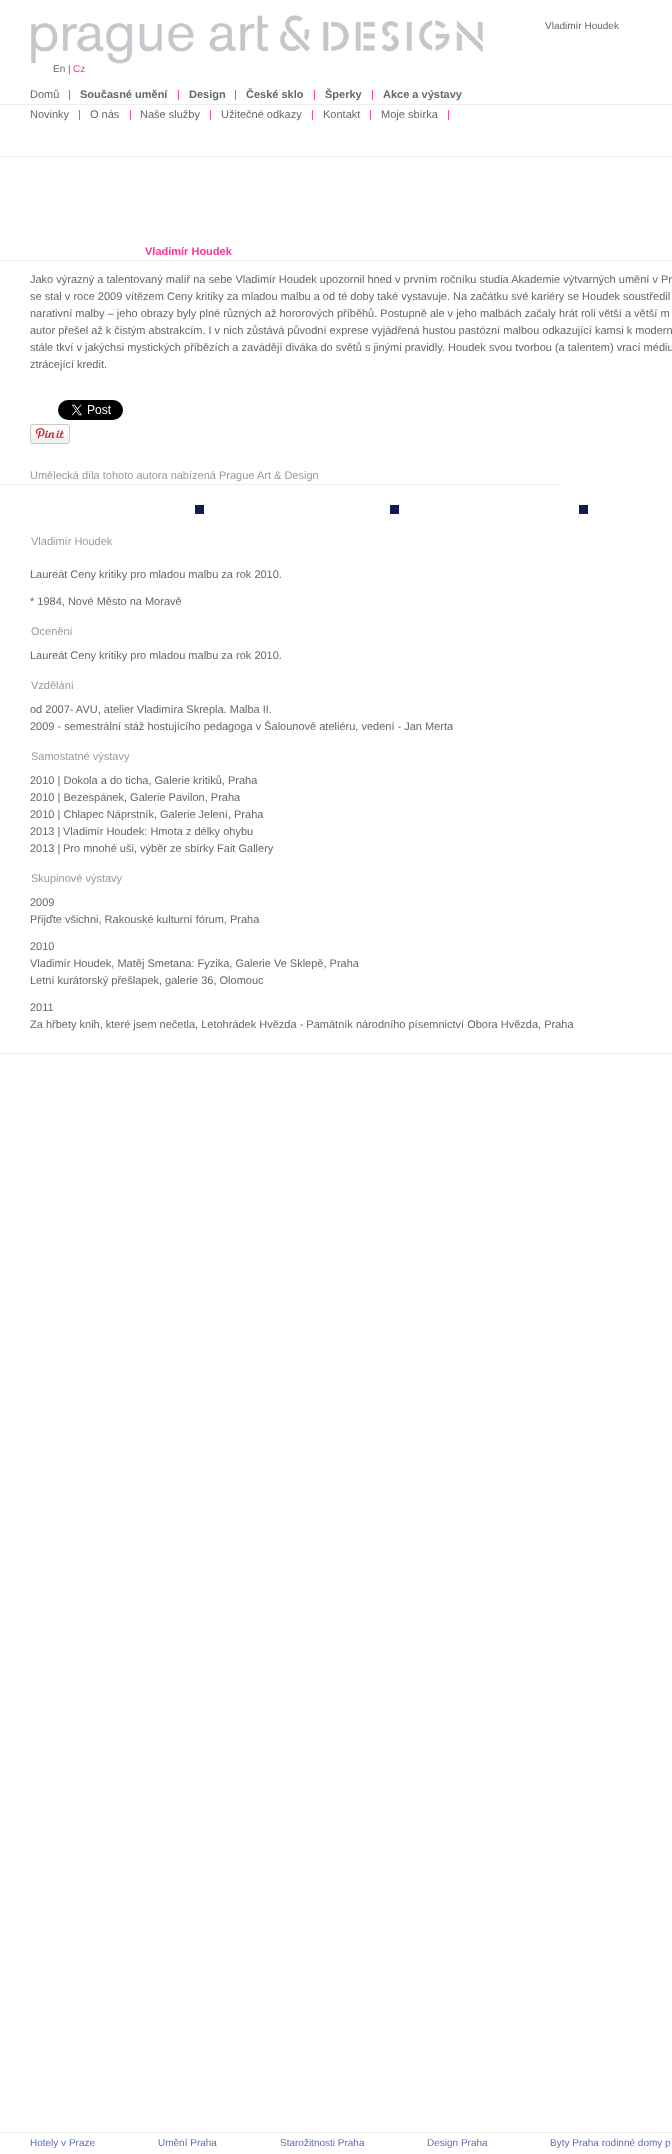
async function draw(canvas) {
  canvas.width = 672;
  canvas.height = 2154;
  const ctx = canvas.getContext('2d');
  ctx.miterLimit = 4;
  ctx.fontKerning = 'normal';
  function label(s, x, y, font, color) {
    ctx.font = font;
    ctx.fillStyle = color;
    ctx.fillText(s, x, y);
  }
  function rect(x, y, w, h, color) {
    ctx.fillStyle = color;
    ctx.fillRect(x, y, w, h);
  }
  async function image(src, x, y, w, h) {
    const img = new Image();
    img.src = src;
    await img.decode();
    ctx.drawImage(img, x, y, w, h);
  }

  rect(0, 0, 672, 2154, '#fff');
  rect(0, 156, 672, 1, '#eee');
  await image('assets/img1.png', 31, 15, 452, 49);
  label('Vladimír Houdek', 545, 29, '10px Liberation Sans', '#676767');
  label('En |', 53, 72, '10px Liberation Sans', '#676767');
  label('Cz', 73, 72, '10px Liberation Sans', '#f39');
  rect(0, 104, 672, 1, '#eee');
  label('Domů', 30, 98, '11px Liberation Sans', '#676767');
  label('|', 68, 98, '11px Liberation Sans', '#f39');
  label('Současné umění', 80, 98, 'bold 11px Liberation Sans', '#676767');
  label('|', 177, 98, '11px Liberation Sans', '#f39');
  label('Design', 189, 98, 'bold 11px Liberation Sans', '#676767');
  label('|', 234, 98, '11px Liberation Sans', '#f39');
  label('České sklo', 246, 98, 'bold 11px Liberation Sans', '#676767');
  label('|', 313, 98, '11px Liberation Sans', '#f39');
  label('Šperky', 325, 98, 'bold 11px Liberation Sans', '#676767');
  label('|', 371, 98, '11px Liberation Sans', '#f39');
  label('Akce a výstavy', 383, 98, 'bold 11px Liberation Sans', '#676767');
  label('Novinky', 30, 118, '11px Liberation Sans', '#676767');
  label('|', 78, 118, '11px Liberation Sans', '#f39');
  label('O nás', 90, 118, '11px Liberation Sans', '#676767');
  label('|', 129, 118, '11px Liberation Sans', '#f39');
  label('Naše služby', 140, 118, '11px Liberation Sans', '#676767');
  label('|', 209, 118, '11px Liberation Sans', '#f39');
  label('Užitečné odkazy', 221, 118, '11px Liberation Sans', '#676767');
  label('|', 311, 118, '11px Liberation Sans', '#f39');
  label('Kontakt', 323, 118, '11px Liberation Sans', '#676767');
  label('|', 369, 118, '11px Liberation Sans', '#f39');
  label('Moje sbírka', 381, 118, '11px Liberation Sans', '#676767');
  label('|', 447, 118, '11px Liberation Sans', '#f39');
  rect(0, 260, 672, 1, '#eee');
  label('Vladimír Houdek', 145, 255, 'bold 11px Liberation Sans', '#f39');
  label('Jako výrazný a talentovaný malíř na sebe Vladimír Houdek upozornil hned v prvním ročníku studia Akademie výtvarných umění v Pr', 30, 283, '11px Liberation Sans', '#676767');
  label('se stal v roce 2009 vítězem Ceny kritiky za mladou malbu a od té doby také vystavuje. Na začátku své kariéry se Houdek soustředil', 30, 300, '11px Liberation Sans', '#676767');
  label('narativní malby – jeho obrazy byly plné různých až hororových příběhů. Postupně ale v jeho malbách začaly hrát roli větší a větší m', 30, 317, '11px Liberation Sans', '#676767');
  label('autor přešel až k čistým abstrakcím. I v nich zůstává původní exprese vyjádřená hustou pastózní malbou odkazující kamsi k modern', 30, 334, '11px Liberation Sans', '#676767');
  label('stále tkví v jakýchsi mystických příbězích a zavádějí diváka do světů s jinými pravidly. Houdek svou tvorbou (a talentem) vrací médiu', 30, 351, '11px Liberation Sans', '#676767');
  label('ztrácející kredit.', 30, 368, '11px Liberation Sans', '#676767');
  await image('assets/img2.png', 58, 400, 65, 20);
  await image('assets/img3.png', 30, 424, 40, 20);
  rect(0, 484, 558, 1, '#eee');
  label('Umělecká díla tohoto autora nabízená Prague Art & Design', 30, 479, '11px Liberation Sans', '#9a9a9a');
  rect(195, 505, 9, 9, '#141950');
  rect(390, 505, 9, 9, '#141950');
  rect(579, 505, 9, 9, '#141950');
  label('Vladimír Houdek', 31, 545, '11px Liberation Sans', '#9a9a9a');
  label('Laureát Ceny kritiky pro mladou malbu za rok 2010.', 30, 578, '11px Liberation Sans', '#676767');
  label('* 1984, Nové Město na Moravě', 30, 605, '11px Liberation Sans', '#676767');
  label('Ocenění', 31, 635, '11px Liberation Sans', '#9a9a9a');
  label('Laureát Ceny kritiky pro mladou malbu za rok 2010.', 30, 659, '11px Liberation Sans', '#676767');
  label('Vzdělání', 31, 689, '11px Liberation Sans', '#9a9a9a');
  label('od 2007- AVU, atelier Vladimíra Skrepla. Malba II.', 30, 713, '11px Liberation Sans', '#676767');
  label('2009 - semestrální stáž hostujícího pedagoga v Šalounově ateliéru, vedení - Jan Merta', 30, 730, '11px Liberation Sans', '#676767');
  label('Samostatné výstavy', 31, 760, '11px Liberation Sans', '#9a9a9a');
  label('2010 | Dokola a do ticha, Galerie kritiků, Praha', 30, 784, '11px Liberation Sans', '#676767');
  label('2010 | Bezespánek, Galerie Pavilon, Praha', 30, 801, '11px Liberation Sans', '#676767');
  label('2010 | Chlapec Náprstník, Galerie Jelení, Praha', 30, 818, '11px Liberation Sans', '#676767');
  label('2013 |', 30, 835, '11px Liberation Sans', '#676767');
  label('Vladimír Houdek: Hmota z délky ohybu', 63, 835, '11px Liberation Sans', '#676767');
  label('2013 |', 30, 852, '11px Liberation Sans', '#676767');
  label('Pro mnohé uši, výběr ze sbírky Fait Gallery', 63, 852, '11px Liberation Sans', '#676767');
  label('Skupinové výstavy', 31, 882, '11px Liberation Sans', '#9a9a9a');
  label('2009', 30, 906, '11px Liberation Sans', '#676767');
  label('Přijďte všichni, Rakouské kulturní fórum, Praha', 30, 923, '11px Liberation Sans', '#676767');
  label('2010', 30, 950, '11px Liberation Sans', '#676767');
  label('Vladimír Houdek, Matěj Smetana: Fyzika, Galerie Ve Sklepě, Praha', 30, 967, '11px Liberation Sans', '#676767');
  label('Letní kurátorský přešlapek, galerie 36, Olomouc', 30, 984, '11px Liberation Sans', '#676767');
  label('2011', 30, 1011, '11px Liberation Sans', '#676767');
  label('Za hřbety knih, které jsem nečetla, Letohrádek Hvězda - Památník národního písemnictví Obora Hvězda, Praha', 30, 1028, '11px Liberation Sans', '#676767');
  rect(0, 1053, 672, 1, '#eee');
  rect(0, 2132, 672, 1, '#eee');
  label('Hotely v Praze', 30, 2146, '10px Liberation Sans', '#5a6fb7');
  label('Umění Praha', 158, 2146, '10px Liberation Sans', '#5a6fb7');
  label('Starožitnosti Praha', 280, 2146, '10px Liberation Sans', '#5a6fb7');
  label('Design Praha', 427, 2146, '10px Liberation Sans', '#5a6fb7');
  label('Byty Praha rodinné domy p', 550, 2146, '10px Liberation Sans', '#5a6fb7');
}

draw(document.querySelector('canvas'));
